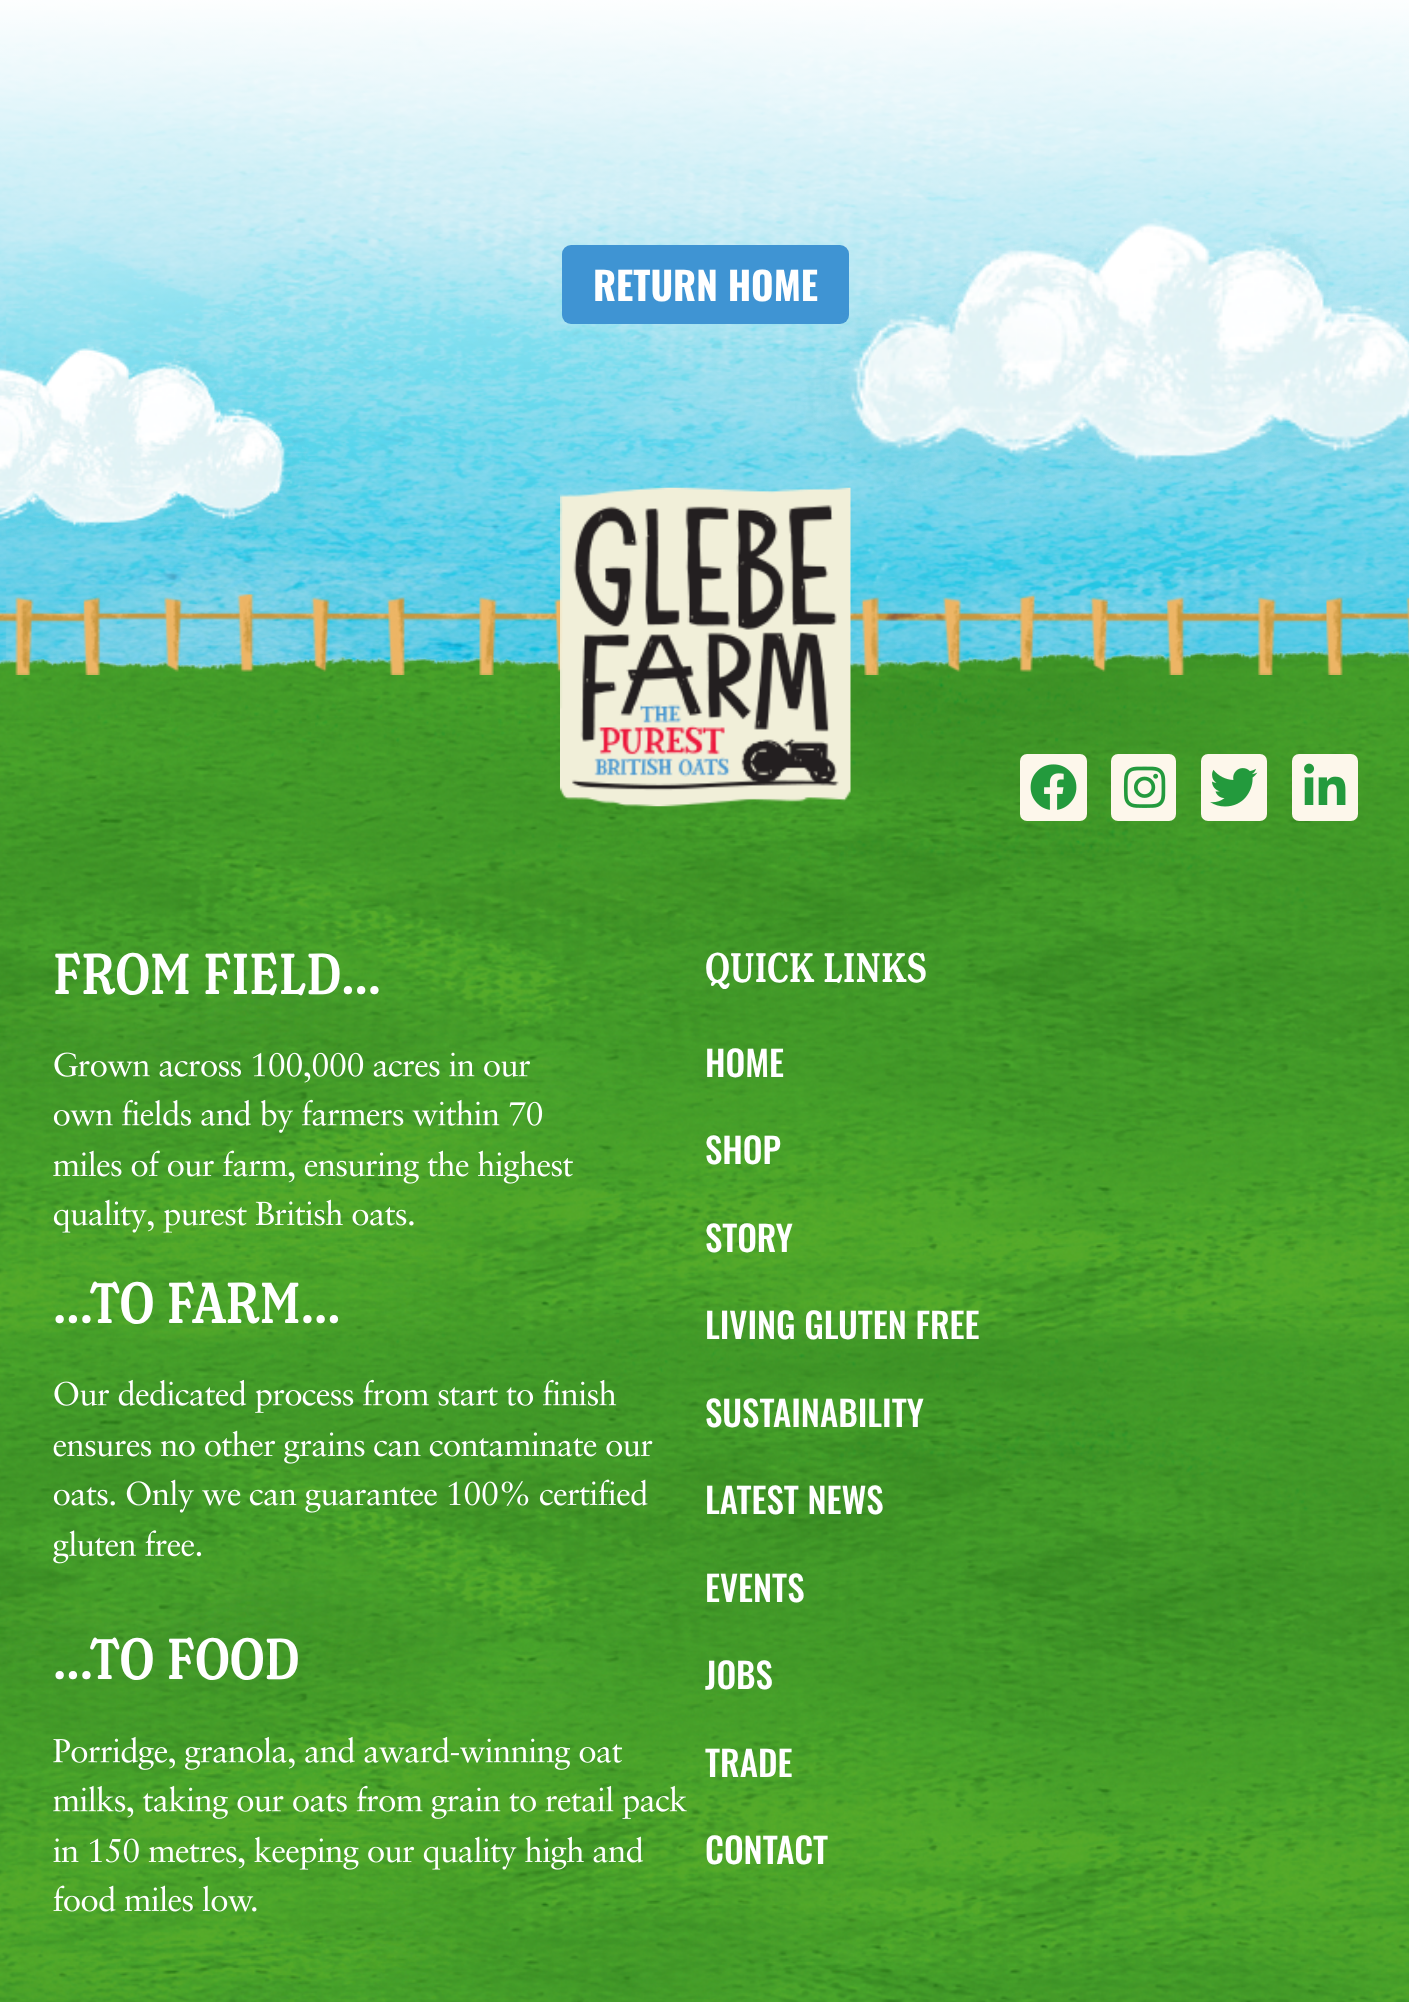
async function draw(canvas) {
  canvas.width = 1409;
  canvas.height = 2002;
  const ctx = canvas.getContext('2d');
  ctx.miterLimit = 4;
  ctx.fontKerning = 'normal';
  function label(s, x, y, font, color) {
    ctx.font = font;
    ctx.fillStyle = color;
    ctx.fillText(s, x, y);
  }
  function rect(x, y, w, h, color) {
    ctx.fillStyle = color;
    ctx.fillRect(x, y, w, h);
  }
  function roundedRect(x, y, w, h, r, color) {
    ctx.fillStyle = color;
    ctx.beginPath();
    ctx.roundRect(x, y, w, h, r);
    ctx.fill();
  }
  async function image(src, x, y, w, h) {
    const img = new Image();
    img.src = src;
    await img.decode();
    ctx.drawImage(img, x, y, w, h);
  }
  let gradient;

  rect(0, 0, 1409, 2002, '#fff');
  await image('assets/img1.png', 0, 0, 1409, 670);
  gradient = ctx.createLinearGradient(705, -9, 705, 691);
  gradient.addColorStop(0, '#fff');
  gradient.addColorStop(1, '#ffffff00');
  ctx.fillStyle = gradient;
  ctx.fillRect(0, 0, 1409, 670);
  roundedRect(562, 245, 287, 79, 9, '#3f94d3');
  label('RETURN HOME', 593, 301, 'bold 38.5px Oswald', '#fff');
  await image('assets/img2.png', 0, 344, 324, 192);
  await image('assets/img3.png', 795, 218, 614, 370);
  await image('assets/img6.png', 0, 649, 1409, 1353);
  await image('assets/img4.png', 0, 594, 1409, 81);
  await image('assets/img5.png', 560, 487, 291, 320);
  roundedRect(1020, 754, 67, 67, 7, '#fdf7eb');
  await image('assets/img7.png', 1030, 764, 47, 46);
  roundedRect(1111, 754, 65, 67, 7, '#fdf7eb');
  await image('assets/img8.png', 1123, 766, 43, 42);
  roundedRect(1201, 754, 66, 67, 7, '#fdf7eb');
  await image('assets/img9.png', 1210, 768, 48, 39);
  roundedRect(1292, 754, 66, 67, 7, '#fdf7eb');
  await image('assets/img10.png', 1304, 763, 42, 42);
  label('FROM FIELD...', 53, 994, '500 61.25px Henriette', '#fff');
  await image('assets/img11.png', 54, 1052, 476, 31);
  await image('assets/img12.png', 53, 1099, 490, 34);
  await image('assets/img13.png', 53, 1150, 520, 34);
  await image('assets/img14.png', 53, 1199, 361, 34);
  label('...TO FARM...', 53, 1323, '500 61.25px Henriette', '#fff');
  await image('assets/img15.png', 54, 1379, 563, 34);
  await image('assets/img16.png', 53, 1430, 600, 34);
  await image('assets/img17.png', 53, 1479, 595, 34);
  await image('assets/img18.png', 53, 1530, 149, 34);
  label('...TO FOOD', 53, 1679, '500 61.25px Henriette', '#fff');
  await image('assets/img19.png', 53, 1736, 570, 34);
  await image('assets/img20.png', 53, 1785, 634, 34);
  await image('assets/img21.png', 53, 1836, 591, 34);
  await image('assets/img22.png', 53, 1885, 204, 27);
  label('QUICK LINKS', 705, 982, '500 43.75px Henriette', '#fff');
  label('HOME', 705, 1077, '500 35px Oswald', '#fff');
  label('SHOP', 705, 1164, '500 35px Oswald', '#fff');
  label('STORY', 705, 1252, '500 35px Oswald', '#fff');
  label('LIVING GLUTEN FREE', 705, 1339, '500 35px Oswald', '#fff');
  label('SUSTAINABILITY', 705, 1427, '500 35px Oswald', '#fff');
  label('LATEST NEWS', 705, 1514, '500 35px Oswald', '#fff');
  label('EVENTS', 705, 1602, '500 35px Oswald', '#fff');
  label('JOBS', 705, 1689, '500 35px Oswald', '#fff');
  label('TRADE', 705, 1777, '500 35px Oswald', '#fff');
  label('CONTACT', 705, 1864, '500 35px Oswald', '#fff');
}

draw(document.querySelector('canvas'));
